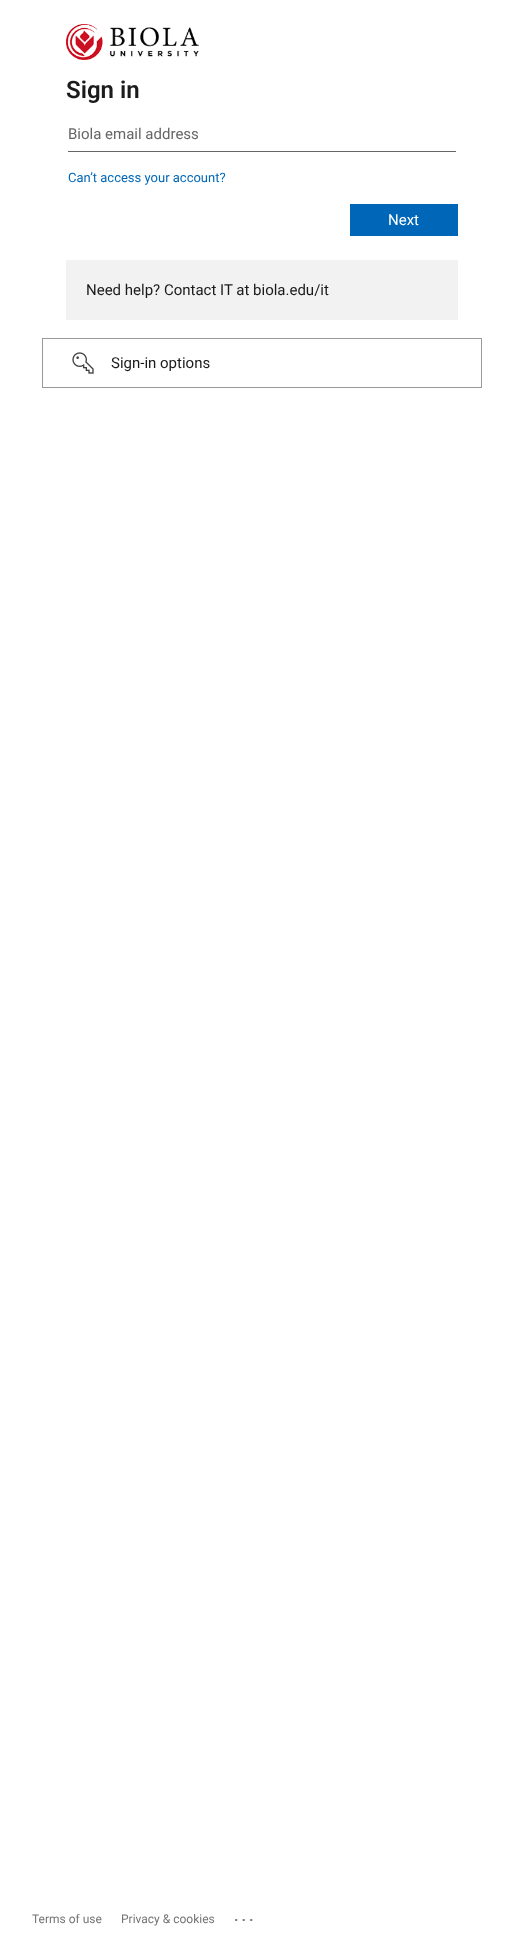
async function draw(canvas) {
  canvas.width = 523;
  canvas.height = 1933;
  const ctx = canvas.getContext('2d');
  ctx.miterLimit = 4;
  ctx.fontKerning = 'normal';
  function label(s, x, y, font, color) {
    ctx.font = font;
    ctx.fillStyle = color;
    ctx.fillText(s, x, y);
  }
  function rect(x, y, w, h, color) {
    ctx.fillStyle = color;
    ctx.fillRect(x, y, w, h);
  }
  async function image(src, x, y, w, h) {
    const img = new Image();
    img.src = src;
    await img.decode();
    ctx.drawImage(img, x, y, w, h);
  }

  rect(0, 0, 523, 1933, '#fff');
  await image('assets/img1.png', 66, 24, 133, 36);
  label('Sign in', 66, 98, '600 24px Roboto', '#1b1b1b');
  rect(68, 151, 388, 1, '#666');
  label('Biola email address', 68, 139, '15px Roboto', '#666');
  label('Can’t access your account?', 68, 182, '13px Roboto', '#0067b8');
  rect(350, 204, 108, 32, '#0067b8');
  label('Next', 388, 225, '15px Roboto', '#fff');
  rect(66, 260, 392, 60, '#f2f2f2');
  label('Need help? Contact IT at biola.edu/it', 86, 295, '15px Roboto', '#1b1b1b');
  ctx.strokeStyle = '#999';
  ctx.strokeRect(42.5, 338.5, 439, 49);
  await image('assets/img2.png', 72, 352, 22, 22);
  label('Sign-in options', 111, 368, '15px Roboto', '#1b1b1b');
  label('Terms of use', 32, 1923, '12px Roboto', '#747474');
  label('Privacy & cookies', 121, 1923, '12px Roboto', '#747474');
  ctx.letterSpacing = '3px';
  label('...', 234, 1921, '600 16px Roboto', '#747474');
}

draw(document.querySelector('canvas'));
